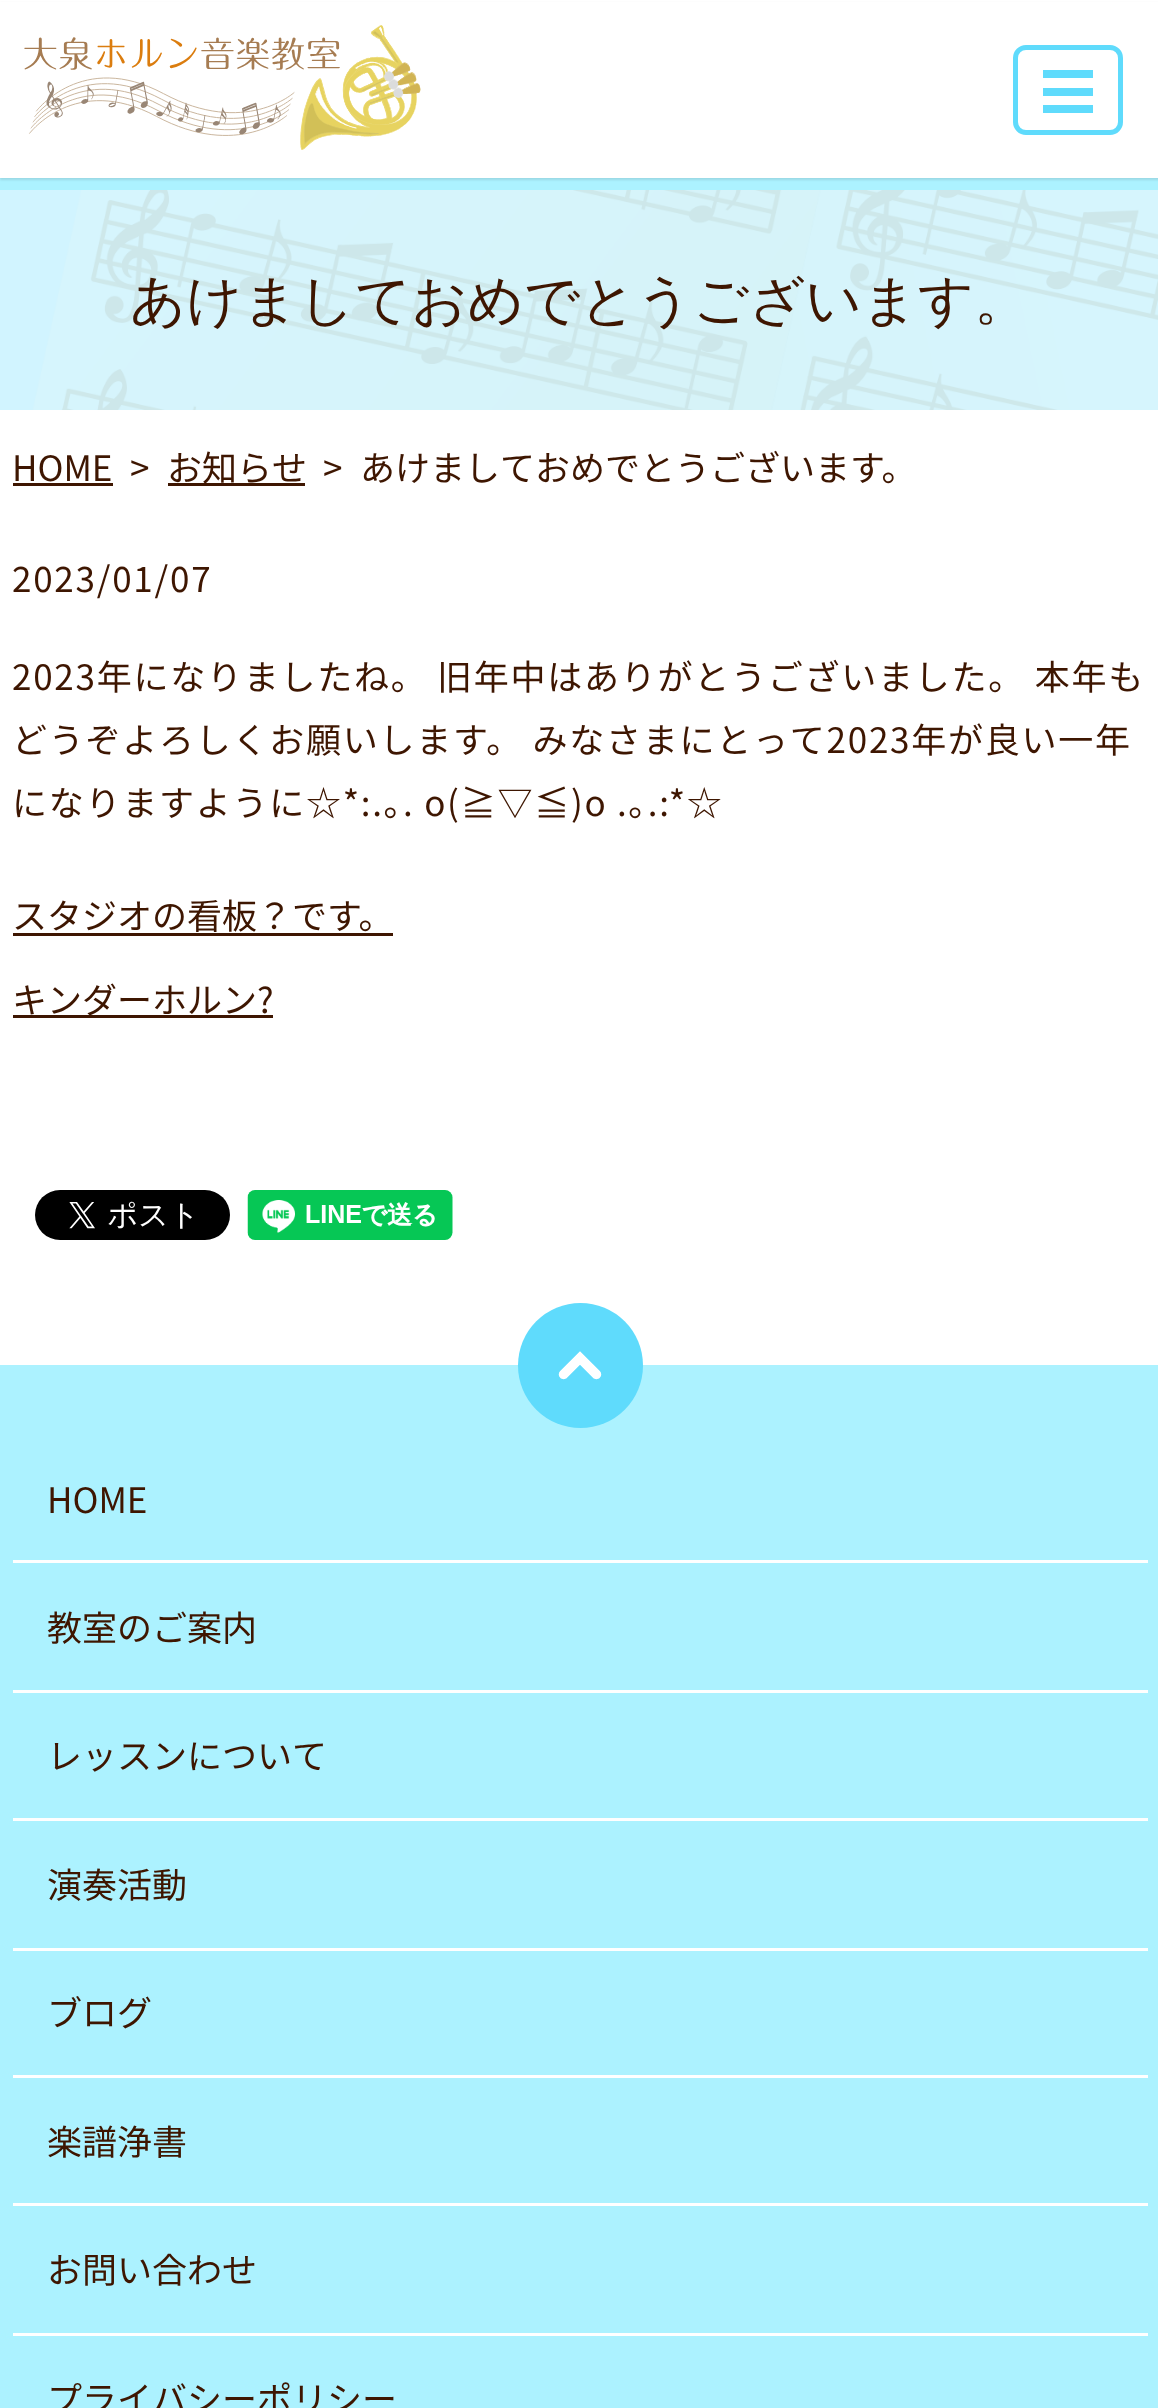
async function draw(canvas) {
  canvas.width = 1158;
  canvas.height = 2408;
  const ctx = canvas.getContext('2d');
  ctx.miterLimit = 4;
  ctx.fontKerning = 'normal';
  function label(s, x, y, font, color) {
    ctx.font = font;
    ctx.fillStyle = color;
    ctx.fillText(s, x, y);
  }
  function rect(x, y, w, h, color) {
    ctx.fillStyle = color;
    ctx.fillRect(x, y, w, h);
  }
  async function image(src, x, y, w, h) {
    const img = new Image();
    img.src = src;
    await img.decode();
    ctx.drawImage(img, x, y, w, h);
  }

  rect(0, 0, 1158, 2408, '#fff');
  rect(0, 178, 1158, 12, '#acf2ff');
  ctx.fillStyle = '#0000001a';
  ctx.filter = 'blur(1px)';
  ctx.beginPath();
  ctx.rect(0, 3, 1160, 177);
  ctx.fill();
  ctx.filter = 'none';
  rect(0, 2, 1158, 176, '#fff');
  await image('assets/img1.png', 24, 25, 397, 125);
  ctx.beginPath();
  ctx.roundRect(1015.5, 47.5, 105, 85, 10.5);
  ctx.strokeStyle = '#5fdbfc';
  ctx.lineWidth = 5;
  ctx.stroke();
  rect(1043, 88, 50, 8, '#5fdbfc');
  rect(1043, 70, 50, 8, '#5fdbfc');
  rect(1043, 105, 50, 8, '#5fdbfc');
  await image('assets/img2.png', 0, 190, 1158, 220);
  label('あけましておめでとうございます。', 130, 319, '500 55px WenQuanYi Zen Hei', '#3e1601');
  label('HOME', 12, 481, '35px Noto Sans JP', '#3e1601');
  rect(13, 483, 100, 3, '#3e1601');
  label('>', 130, 481, '35px Noto Sans JP', '#3e1601');
  rect(168, 483, 137, 3, '#3e1601');
  label('お知らせ', 167, 481, '35px Noto Sans JP', '#3e1601');
  label('>', 323, 481, '35px Noto Sans JP', '#3e1601');
  label('あけましておめでとうございます。', 360, 481, '35px Noto Sans JP', '#3e1601');
  ctx.letterSpacing = '1.75px';
  label('2023/01/07', 12, 592, '35px Noto Sans JP', '#3e1601');
  label('2023年になりましたね。 旧年中はありがとうございました。 本年も', 12, 690, '35px Noto Sans JP', '#3e1601');
  label('どうぞよろしくお願いします。 みなさまにとって2023年が良い一年', 12, 753, '35px Noto Sans JP', '#3e1601');
  label('になりますように☆*:.｡. o(≧▽≦)o .｡.:*☆', 12, 816, '35px Noto Sans JP', '#3e1601');
  ctx.letterSpacing = '0px';
  label('スタジオの看板？です。', 12, 929, '35px Noto Sans JP', '#3e1601');
  rect(13, 933, 380, 3, '#3e1601');
  rect(13, 1015, 260, 3, '#3e1601');
  label('キンダーホルン?', 12, 1013, '35px Noto Sans JP', '#3e1601');
  await image('assets/img3.png', 35, 1190, 195, 50);
  await image('assets/img4.png', 247, 1190, 206, 50);
  rect(0, 1365, 1158, 1043, '#acf2ff');
  ctx.fillStyle = '#5fdbfc';
  ctx.beginPath();
  ctx.arc(580.5, 1365.5, 62.5, 0, 2 * Math.PI);
  ctx.fill();
  await image('assets/img5.png', 558, 1351, 44, 29);
  label('HOME', 47, 1513, '35px Noto Sans JP', '#3e1601');
  rect(13, 1560, 1135, 3, '#fff');
  label('教室のご案内', 47, 1641, '35px Noto Sans JP', '#3e1601');
  rect(13, 1690, 1135, 3, '#fff');
  label('レッスンについて', 47, 1769, '35px Noto Sans JP', '#3e1601');
  rect(13, 1818, 1135, 3, '#fff');
  label('演奏活動', 47, 1898, '35px Noto Sans JP', '#3e1601');
  rect(13, 1948, 1135, 3, '#fff');
  label('ブログ', 47, 2026, '35px Noto Sans JP', '#3e1601');
  rect(13, 2075, 1135, 3, '#fff');
  label('楽譜浄書', 47, 2155, '35px Noto Sans JP', '#3e1601');
  rect(13, 2203, 1135, 3, '#fff');
  label('お問い合わせ', 47, 2283, '35px Noto Sans JP', '#3e1601');
  rect(13, 2333, 1135, 3, '#fff');
  label('プライバシーポリシー', 47, 2412, '35px Noto Sans JP', '#3e1601');
}

draw(document.querySelector('canvas'));
